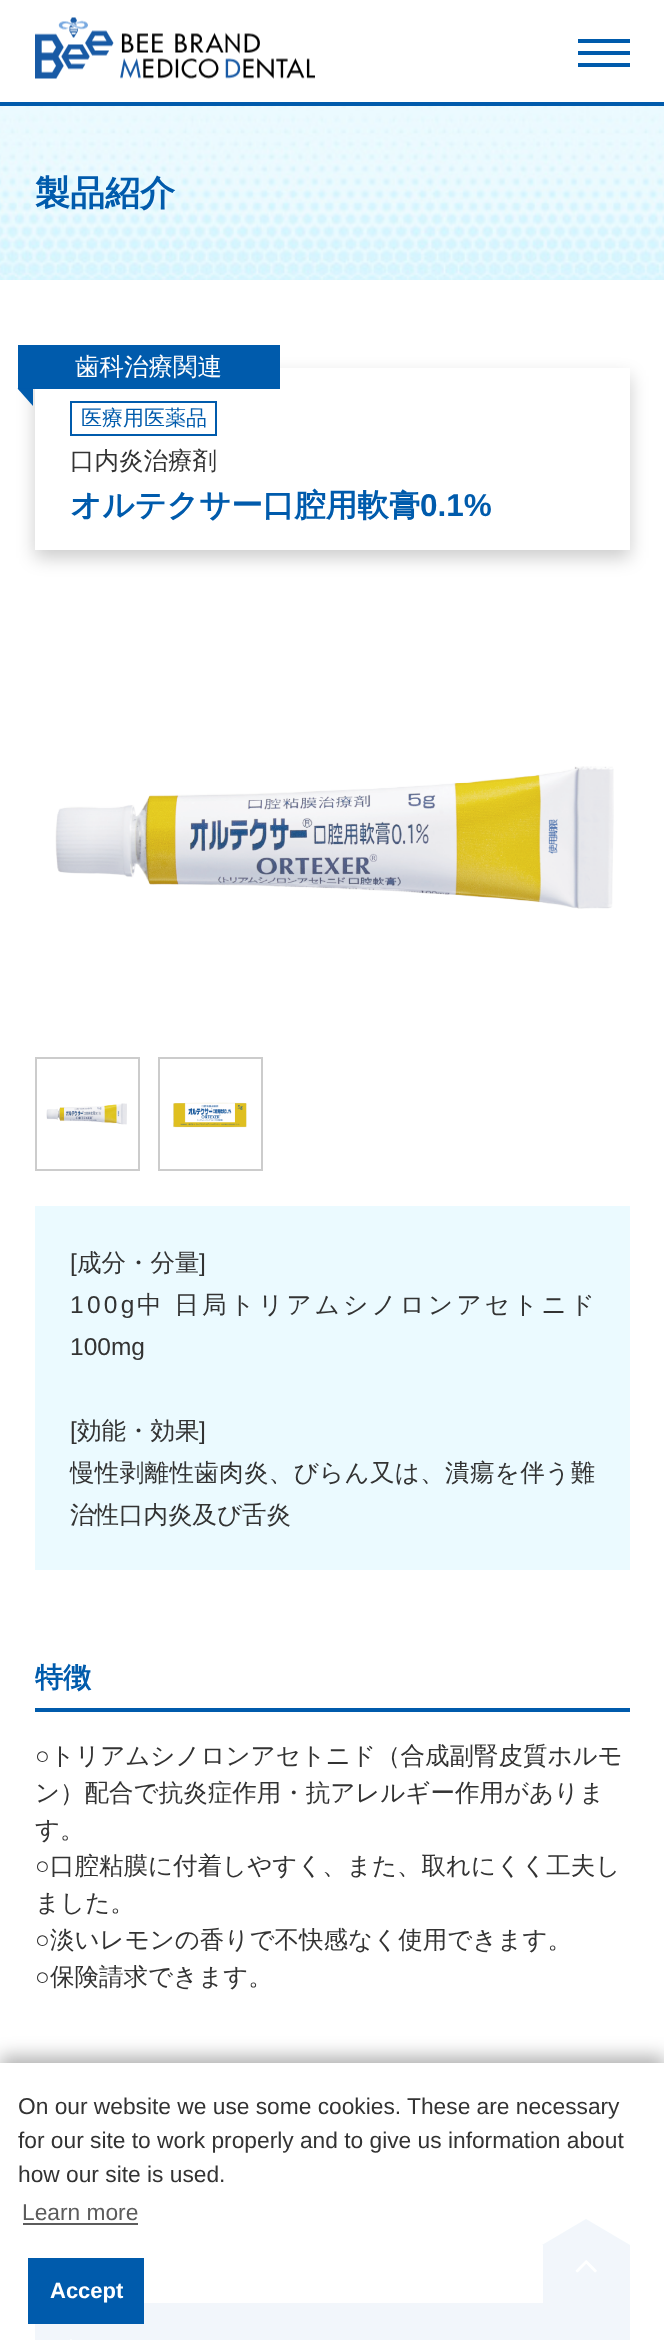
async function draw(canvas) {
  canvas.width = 664;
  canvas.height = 2340;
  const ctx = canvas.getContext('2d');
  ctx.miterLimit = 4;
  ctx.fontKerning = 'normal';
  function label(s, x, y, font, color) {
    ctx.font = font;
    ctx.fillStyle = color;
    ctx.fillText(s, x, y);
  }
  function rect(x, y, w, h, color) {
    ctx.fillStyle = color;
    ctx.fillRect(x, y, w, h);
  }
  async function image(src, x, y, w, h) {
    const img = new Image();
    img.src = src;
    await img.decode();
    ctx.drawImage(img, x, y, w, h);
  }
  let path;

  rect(0, 0, 664, 2340, '#fff');
  rect(0, 102, 664, 4, '#005bac');
  await image('assets/img1.png', 35, 17, 280, 62);
  rect(578, 39, 52, 4, '#005bac');
  rect(578, 51, 52, 4, '#005bac');
  rect(578, 63, 52, 4, '#005bac');
  await image('assets/img2.png', 0, 106, 664, 174);
  label('製品紹介', 35, 205, 'bold 35px WenQuanYi Zen Hei', '#005bac');
  ctx.save();
  path = new Path2D('M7 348H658V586H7ZM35 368H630V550H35Z');
  ctx.clip(path, 'evenodd');
  ctx.fillStyle = '#00000033';
  ctx.filter = 'blur(9px)';
  ctx.beginPath();
  ctx.rect(35, 376, 595, 182);
  ctx.fill();
  ctx.filter = 'none';
  ctx.restore();
  rect(18, 345, 262, 44, '#005bac');
  label('歯科治療関連', 75, 375, '500 24.5px WenQuanYi Zen Hei', '#fff');
  ctx.fillStyle = '#005bac';
  path = new Path2D('M33 388.5V406L17.5 388.5Z');
  ctx.fill(path);
  ctx.strokeStyle = '#005bac';
  ctx.lineWidth = 2;
  ctx.strokeRect(71, 402, 145, 33);
  label('医療用医薬品', 81, 425, '500 21px WenQuanYi Zen Hei', '#005bac');
  label('口内炎治療剤', 70, 469, '500 24.5px WenQuanYi Zen Hei', '#333');
  label('オルテクサー口腔用軟膏', 70, 516, 'bold 31.5px WenQuanYi Zen Hei', '#005bac');
  label('0.1%', 420, 516, 'bold 31.5px Liberation Sans', '#005bac');
  await image('assets/img3.png', 55, 766, 559, 143);
  await image('assets/img4.png', 46, 1103, 81, 22);
  ctx.strokeStyle = '#ccc';
  ctx.strokeRect(36, 1058, 103, 112);
  await image('assets/img5.png', 173, 1102, 74, 26);
  ctx.strokeRect(159, 1058, 103, 112);
  rect(35, 1206, 595, 364, '#ebfaff');
  label('[', 70, 1271, '24.5px Liberation Sans', '#333');
  label('成分・分量', 77, 1271, '500 24.5px WenQuanYi Zen Hei', '#333');
  label(']', 199, 1271, '24.5px Liberation Sans', '#333');
  ctx.letterSpacing = '3.25px';
  label('100g', 70, 1313, '24.5px Liberation Sans', '#333');
  ctx.wordSpacing = '-1px';
  label('中 日局トリアムシノロンアセトニド', 137, 1313, '500 24.5px WenQuanYi Zen Hei', '#333');
  ctx.letterSpacing = '0px';
  ctx.wordSpacing = '0px';
  label('100mg', 70, 1355, '24.5px Liberation Sans', '#333');
  label('[', 70, 1439, '24.5px Liberation Sans', '#333');
  label('効能・効果', 77, 1439, '500 24.5px WenQuanYi Zen Hei', '#333');
  label(']', 199, 1439, '24.5px Liberation Sans', '#333');
  ctx.letterSpacing = '0.35px';
  label('慢性剥離性歯肉炎、びらん又は、潰瘍を伴う難', 70, 1481, '500 24.5px WenQuanYi Zen Hei', '#333');
  ctx.letterSpacing = '0px';
  label('治性口内炎及び舌炎', 70, 1523, '500 24.5px WenQuanYi Zen Hei', '#333');
  rect(35, 1708, 595, 4, '#005bac');
  label('特徴', 35, 1687, 'bold 28px WenQuanYi Zen Hei', '#005bac');
  label('○', 35, 1764, '24.5px Liberation Sans', '#333');
  label('トリアムシノロンアセトニド（合成副腎皮質ホルモ', 50, 1764, '500 24.5px WenQuanYi Zen Hei', '#333');
  label('ン）配合で抗炎症作用・抗アレルギー作用がありま', 35, 1801, '500 24.5px WenQuanYi Zen Hei', '#333');
  label('す。', 35, 1838, '500 24.5px WenQuanYi Zen Hei', '#333');
  label('○', 35, 1874, '24.5px Liberation Sans', '#333');
  label('口腔粘膜に付着しやすく、また、取れにくく工夫し', 50, 1874, '500 24.5px WenQuanYi Zen Hei', '#333');
  label('ました。', 35, 1911, '500 24.5px WenQuanYi Zen Hei', '#333');
  label('○', 35, 1948, '24.5px Liberation Sans', '#333');
  label('淡いレモンの香りで不快感なく使用できます。', 50, 1948, '500 24.5px WenQuanYi Zen Hei', '#333');
  label('○', 35, 1985, '24.5px Liberation Sans', '#333');
  label('保険請求できます。', 50, 1985, '500 24.5px WenQuanYi Zen Hei', '#333');
  rect(0, 2083, 664, 257, '#f0f3f7');
  ctx.fillStyle = '#005bac';
  ctx.beginPath();
  ctx.rect(37, 2305, 591, 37);
  ctx.fill();
  ctx.strokeStyle = '#005bac';
  ctx.lineWidth = 4;
  ctx.stroke();
  rect(70, 2339, 2, 1, '#91b8db');
  rect(543, 2245, 87, 62, '#005bac');
  path = new Path2D('M630 2245H542L586 2219Z');
  ctx.fill(path);
  await image('assets/img6.png', 575, 2260, 22, 13);
  ctx.save();
  path = new Path2D('M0 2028H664V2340H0ZM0 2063H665V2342H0Z');
  ctx.clip(path, 'evenodd');
  ctx.fillStyle = '#0000004d';
  ctx.filter = 'blur(9px)';
  ctx.beginPath();
  ctx.rect(0, 2056, 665, 279);
  ctx.fill();
  ctx.filter = 'none';
  ctx.restore();
  rect(0, 2063, 664, 277, '#fffffff2');
  label('On our website we use some cookies. These are necessary', 18, 2114, '22.75px Liberation Sans', '#333');
  label('for our site to work properly and to give us information about', 18, 2148, '22.75px Liberation Sans', '#333');
  label('how our site is used.', 18, 2182, '22.75px Liberation Sans', '#333');
  label('Learn more', 22, 2220, '22.75px Liberation Sans', '#5c5c5c');
  rect(23, 2223, 115, 2, '#5c5c5c');
  rect(28, 2258, 116, 66, '#005bac');
  label('Accept', 50, 2298, 'bold 22px Liberation Sans', '#fff');
}

draw(document.querySelector('canvas'));
